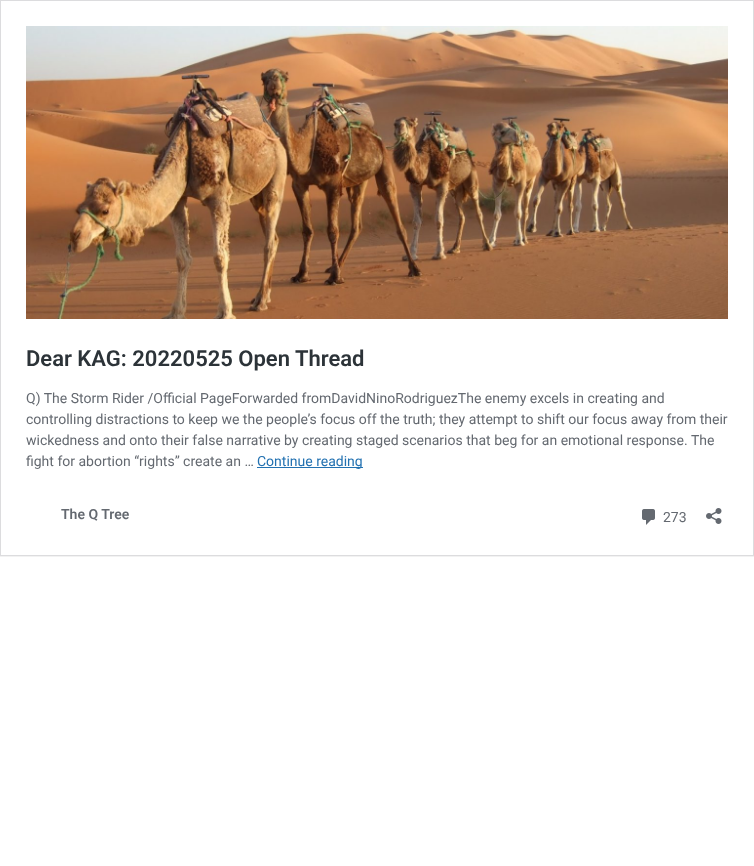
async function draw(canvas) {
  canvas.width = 754;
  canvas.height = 866;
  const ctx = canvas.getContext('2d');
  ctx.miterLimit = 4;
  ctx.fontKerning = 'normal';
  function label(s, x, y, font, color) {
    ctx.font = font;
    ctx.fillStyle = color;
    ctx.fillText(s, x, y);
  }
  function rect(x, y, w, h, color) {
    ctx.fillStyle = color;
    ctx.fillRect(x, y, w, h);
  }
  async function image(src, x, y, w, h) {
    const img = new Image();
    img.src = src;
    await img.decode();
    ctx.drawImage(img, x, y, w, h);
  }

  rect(0, 0, 754, 866, '#fff');
  ctx.save();
  ctx.beginPath();
  ctx.rect(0, 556, 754, 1);
  ctx.clip();
  ctx.fillStyle = '#0000000d';
  ctx.filter = 'blur(0.5px)';
  ctx.beginPath();
  ctx.rect(0, 1, 754, 556);
  ctx.fill();
  ctx.filter = 'none';
  ctx.restore();
  ctx.strokeStyle = '#dcdcde';
  ctx.strokeRect(0.5, 0.5, 753, 555);
  await image('assets/img1.png', 26, 26, 702, 293);
  label('Dear KAG: 20220525 Open Thread', 26, 366, '600 22px Roboto', '#2c3338');
  label('Q) The Storm Rider /Official PageForwarded fromDavidNinoRodriguezThe enemy excels in creating and', 26, 403, '14px Roboto', '#646970');
  label('controlling distractions to keep we the people’s focus off the truth; they attempt to shift our focus away from their', 26, 424, '14px Roboto', '#646970');
  label('wickedness and onto their false narrative by creating staged scenarios that beg for an emotional response. The', 26, 445, '14px Roboto', '#646970');
  label('fight for abortion “rights” create an …', 26, 466, '14px Roboto', '#646970');
  rect(257, 467, 106, 1, '#2271b1');
  label('Continue reading', 257, 466, '14px Roboto', '#2271b1');
  label('The Q Tree', 61, 519, '600 14px Roboto', '#646970');
  await image('assets/img2.png', 642, 509, 13, 16);
  label('273', 663, 522, '14px Roboto', '#646970');
  await image('assets/img3.png', 706, 508, 16, 16);
}

draw(document.querySelector('canvas'));
